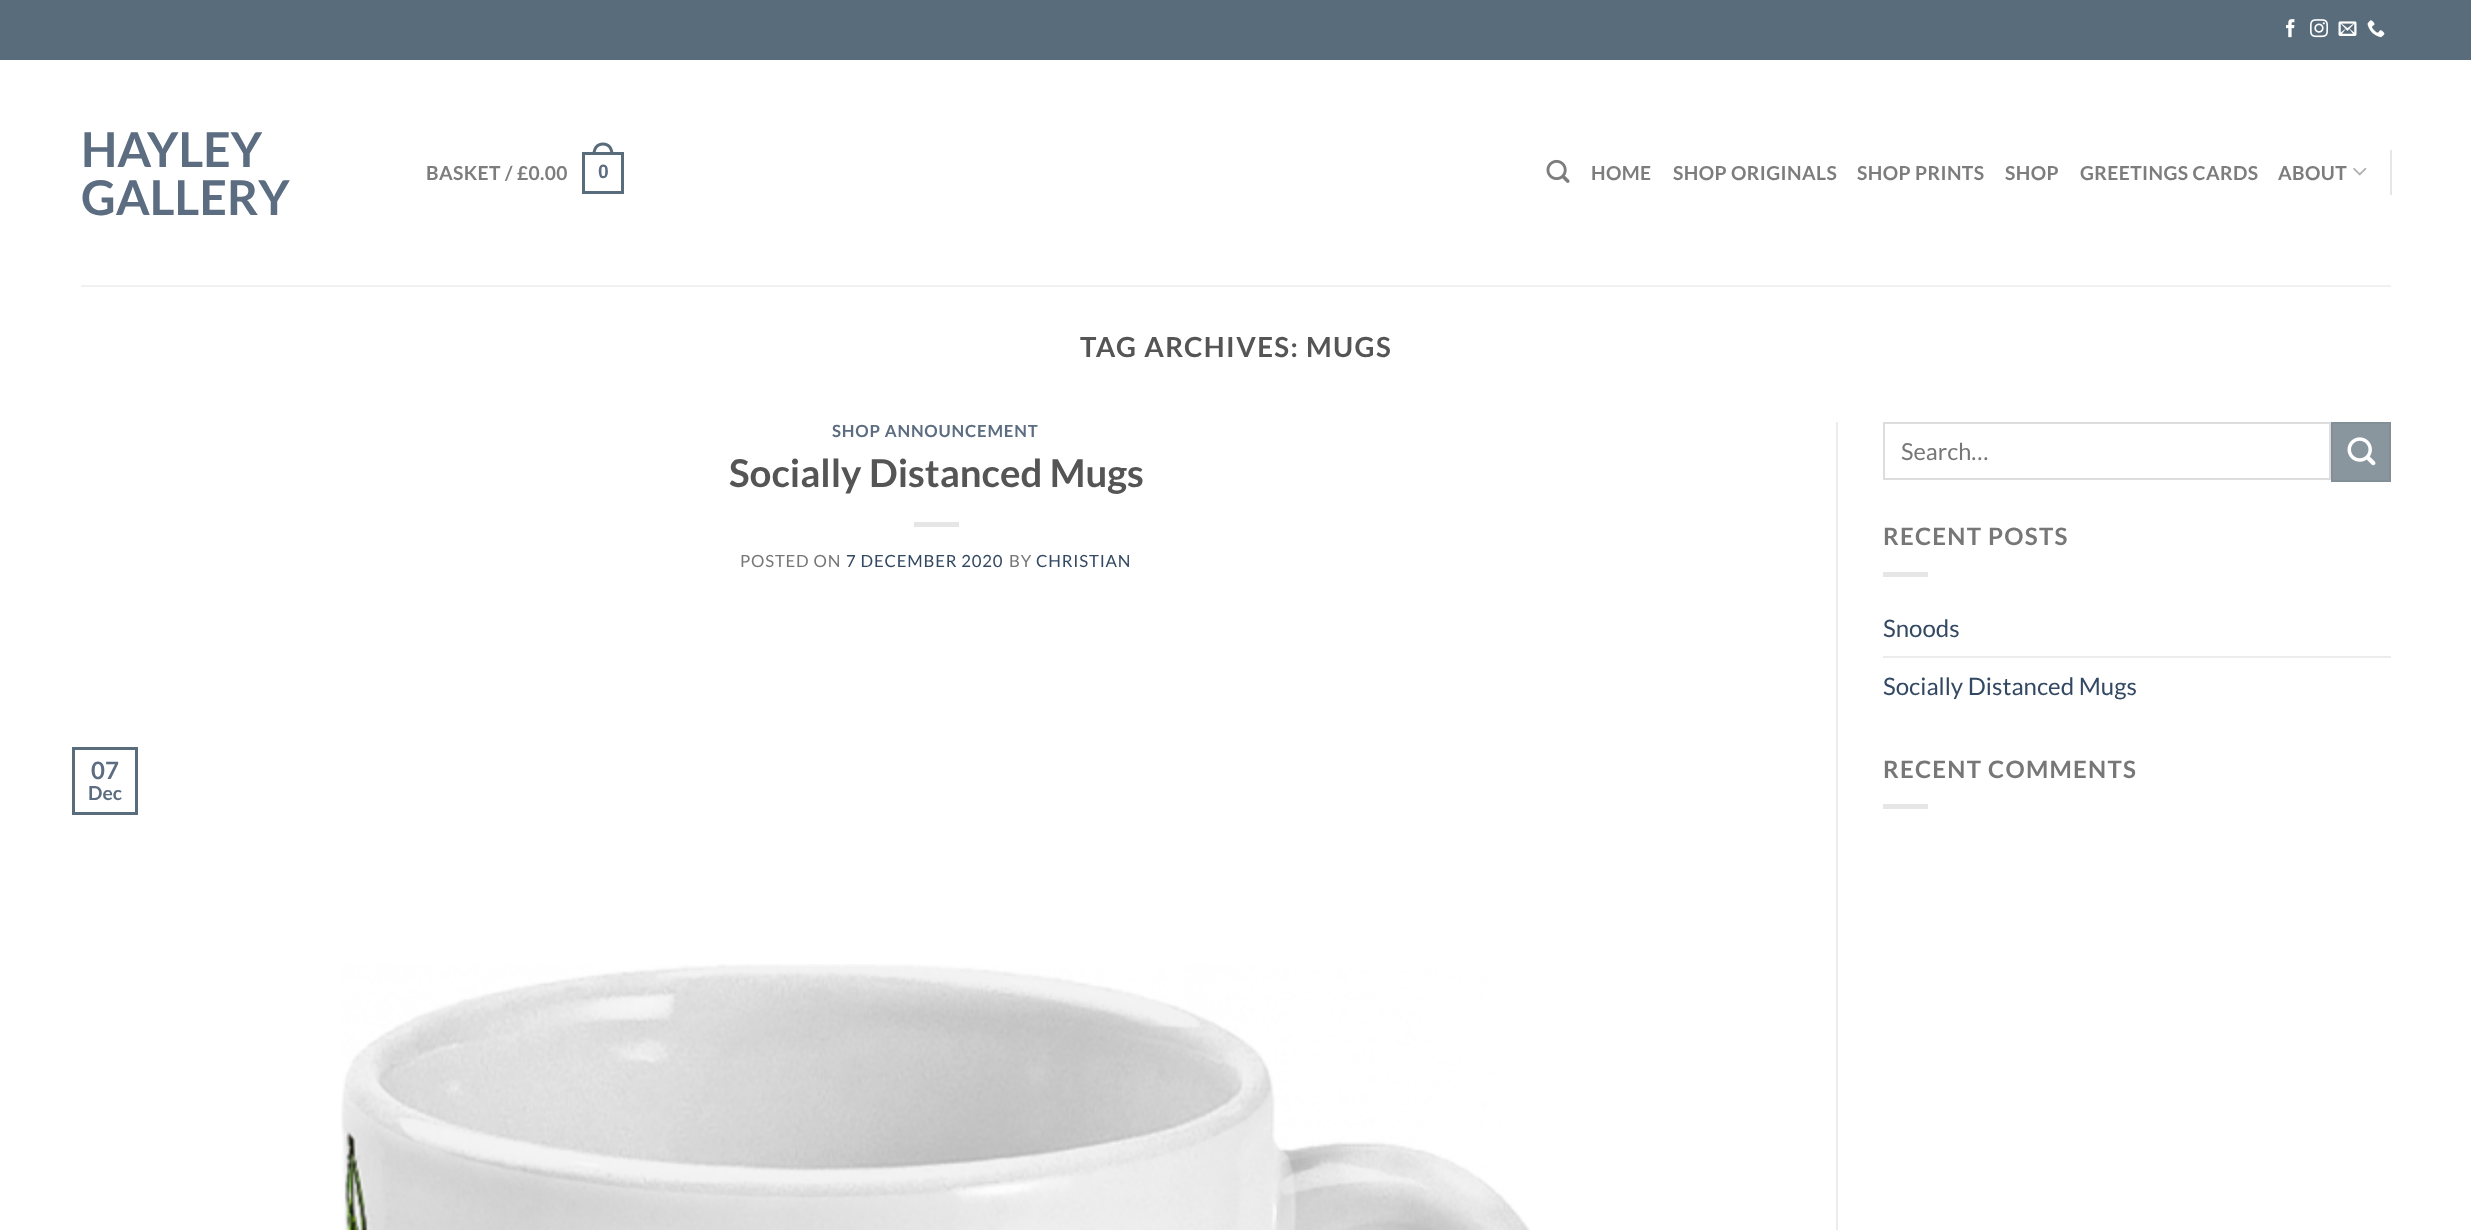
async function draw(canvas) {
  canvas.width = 2471;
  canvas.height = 1230;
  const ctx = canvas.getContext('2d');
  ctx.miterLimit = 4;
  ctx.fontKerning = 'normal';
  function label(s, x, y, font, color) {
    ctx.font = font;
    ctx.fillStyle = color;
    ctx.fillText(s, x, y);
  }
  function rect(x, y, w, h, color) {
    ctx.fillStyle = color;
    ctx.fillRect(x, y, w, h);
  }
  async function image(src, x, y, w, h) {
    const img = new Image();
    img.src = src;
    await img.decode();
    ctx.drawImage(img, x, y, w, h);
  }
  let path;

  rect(0, 0, 2471, 1230, '#fff');
  rect(0, 0, 2471, 60, '#596c7c');
  await image('assets/img1.png', 2286, 19, 9, 19);
  await image('assets/img2.png', 2310, 19, 18, 19);
  await image('assets/img3.png', 2338, 21, 19, 15);
  await image('assets/img4.png', 2367, 20, 18, 18);
  label('HAYLEY', 81, 167, 'bold 48px Lato', '#5c6d81');
  label('GALLERY', 81, 215, 'bold 48px Lato', '#5c6d81');
  ctx.letterSpacing = '0.4px';
  label('BASKET / £0.00', 426, 180, 'bold 19.25px Lato', '#7d7d7d');
  ctx.strokeStyle = '#596c7c';
  ctx.lineWidth = 3;
  ctx.strokeRect(583.5, 153.5, 39, 39);
  ctx.fillStyle = '#596c7c';
  path = new Path2D('M603 142.5C610 142.5 613.5 148 613.5 154.5H592.5C592.5 148 596 142.5 603 142.5ZM603 145.5C608.5 145.5 610.5 150 610.5 154.5H595.5C595.5 150 597.5 145.5 603 145.5Z');
  ctx.fill(path, 'evenodd');
  label('0', 598, 178, 'bold 19.25px Liberation Sans', '#5c6d81');
  await image('assets/img5.png', 1546, 159, 24, 24);
  label('HOME', 1591, 180, 'bold 19.25px Lato', '#7d7d7d');
  label('SHOP ORIGINALS', 1673, 180, 'bold 19.25px Lato', '#7d7d7d');
  label('SHOP PRINTS', 1857, 180, 'bold 19.25px Lato', '#7d7d7d');
  label('SHOP', 2005, 180, 'bold 19.25px Lato', '#7d7d7d');
  label('GREETINGS CARDS', 2080, 180, 'bold 19.25px Lato', '#7d7d7d');
  label('ABOUT', 2278, 180, 'bold 19.25px Lato', '#7d7d7d');
  await image('assets/img6.png', 2353, 167, 14, 9);
  rect(2390, 150, 2, 45, '#e6e6e6');
  rect(81, 285, 2310, 2, '#f1f1f1');
  ctx.letterSpacing = '1.4px';
  label('TAG ARCHIVES: MUGS', 1080, 357, 'bold 27.6px Lato', '#555');
  ctx.letterSpacing = '0.8px';
  label('SHOP ANNOUNCEMENT', 832, 437, 'bold 16.75px Lato', '#5c6d81');
  ctx.letterSpacing = '0px';
  label('Socially Distanced Mugs', 729, 487, 'bold 38.4px Lato', '#555');
  rect(914, 522, 45, 5, '#e6e6e6');
  ctx.letterSpacing = '0.8px';
  label('POSTED ON', 740, 567, '16.75px Lato', '#777');
  label('7 DECEMBER 2020', 846, 567, '16.75px Lato', '#334862');
  label('BY', 1009, 567, '16.75px Lato', '#777');
  label('CHRISTIAN', 1036, 567, '16.75px Lato', '#334862');
  ctx.strokeRect(73.5, 748.5, 63, 65);
  ctx.letterSpacing = '0px';
  label('07', 91, 779, 'bold 24px Lato', '#5c6d81');
  label('Dec', 88, 800, 'bold 19.25px Lato', '#5c6d81');
  await image('assets/img7.png', 341, 964, 1189, 266);
  rect(1836, 422, 2, 808, '#ececec');
  ctx.strokeStyle = '#ddd';
  ctx.lineWidth = 2;
  ctx.strokeRect(1884, 423, 446, 56);
  label('Search…', 1901, 460, '23.5px Lato', '#777');
  ctx.fillStyle = '#89969e';
  ctx.beginPath();
  ctx.rect(2332, 423, 58, 58);
  ctx.fill();
  ctx.strokeStyle = '#828f96';
  ctx.stroke();
  await image('assets/img8.png', 2347, 437, 29, 29);
  ctx.letterSpacing = '1.25px';
  label('RECENT POSTS', 1883, 545, 'bold 24px Lato', '#777');
  rect(1883, 572, 45, 5, '#e6e6e6');
  ctx.letterSpacing = '0px';
  label('Snoods', 1883, 637, '24px Lato', '#334862');
  rect(1883, 656, 508, 2, '#ececec');
  label('Socially Distanced Mugs', 1883, 695, '24px Lato', '#334862');
  ctx.letterSpacing = '1.25px';
  label('RECENT COMMENTS', 1883, 778, 'bold 24px Lato', '#777');
  rect(1883, 804, 45, 5, '#e6e6e6');
}

draw(document.querySelector('canvas'));
